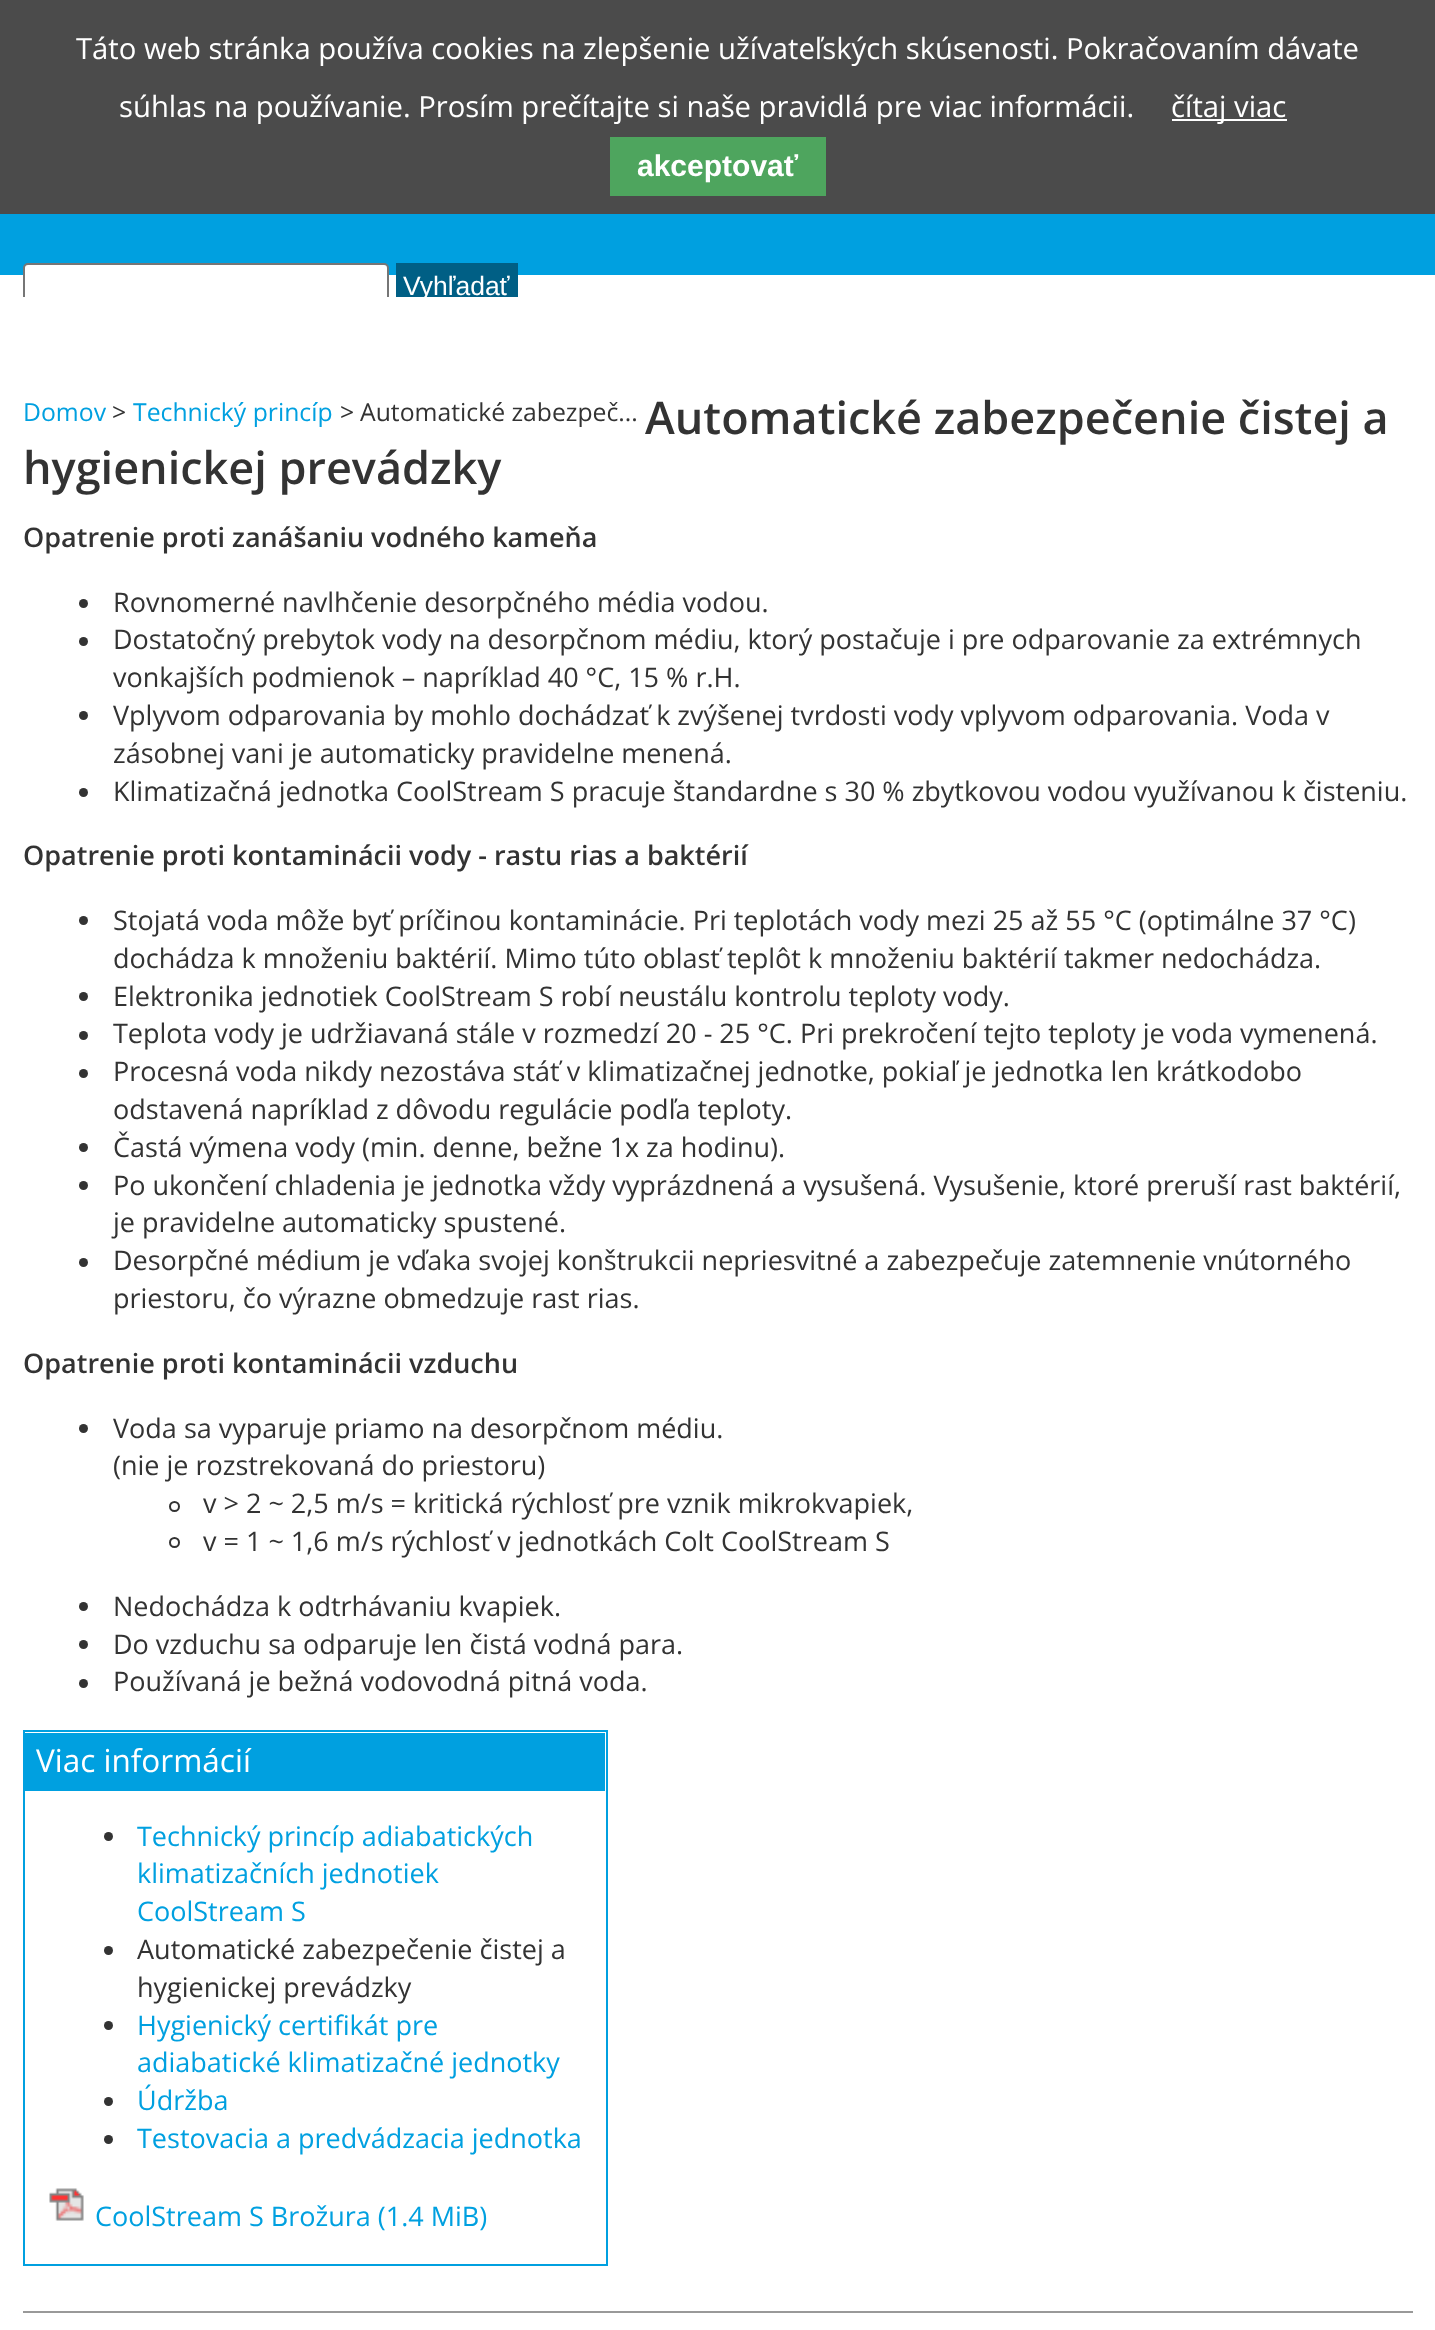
async function draw(canvas) {
  canvas.width = 1435;
  canvas.height = 2330;
  const ctx = canvas.getContext('2d');
  ctx.miterLimit = 4;
  ctx.fontKerning = 'normal';
  function label(s, x, y, font, color) {
    ctx.font = font;
    ctx.fillStyle = color;
    ctx.fillText(s, x, y);
  }
  function rect(x, y, w, h, color) {
    ctx.fillStyle = color;
    ctx.fillRect(x, y, w, h);
  }
  async function image(src, x, y, w, h) {
    const img = new Image();
    img.src = src;
    await img.decode();
    ctx.drawImage(img, x, y, w, h);
  }

  rect(0, 0, 1435, 2330, '#fff');
  rect(0, 0, 1435, 214, '#4b4b4b');
  label('Táto web stránka používa cookies na zlepšenie užívateľských skúsenosti. Pokračovaním dávate', 76, 59, '29.25px Open Sans', '#fff');
  label('súhlas na používanie. Prosím prečítajte si naše pravidlá pre viac informácii.', 119, 117, '29.25px Open Sans', '#fff');
  rect(1172, 119, 115, 2, '#fff');
  label('čítaj viac', 1171, 117, '29.25px Open Sans', '#fff');
  rect(610, 137, 216, 59, '#4ea55e');
  label('akceptovať', 637, 176, 'bold 30px Liberation Sans', '#fff');
  rect(0, 214, 1435, 61, '#00a0e0');
  ctx.fillStyle = '#fff';
  ctx.beginPath();
  ctx.roundRect(24, 264, 364, 43, 4);
  ctx.fill();
  ctx.strokeStyle = '#767676';
  ctx.lineWidth = 2;
  ctx.stroke();
  rect(396, 263, 122, 34, '#005f85');
  label('Vyhľadať', 403, 295, '26.5px Liberation Sans', '#fff');
  rect(23, 297, 366, 11, '#fff');
  label('Automatické zabezpečenie čistej a', 645, 434, '600 45px Open Sans', '#333');
  label('hygienickej prevádzky', 23, 484, '600 45px Open Sans', '#333');
  label('Opatrenie proti zanášaniu vodného kameňa', 23, 547, '600 27px Open Sans', '#333');
  ctx.beginPath();
  ctx.arc(83.5, 603.5, 4.5, 0, 2 * Math.PI);
  ctx.fill();
  label('Rovnomerné navlhčenie desorpčného média vodou.', 113, 612, '27px Open Sans', '#333');
  ctx.beginPath();
  ctx.arc(83.5, 641.5, 4.5, 0, 2 * Math.PI);
  ctx.fill();
  label('Dostatočný prebytok vody na desorpčnom médiu, ktorý postačuje i pre odparovanie za extrémnych', 113, 649, '27px Open Sans', '#333');
  label('vonkajších podmienok – napríklad 40 °C, 15 % r.H.', 113, 687, '27px Open Sans', '#333');
  ctx.beginPath();
  ctx.arc(83.5, 715.5, 4.5, 0, 2 * Math.PI);
  ctx.fill();
  label('Vplyvom odparovania by mohlo dochádzať k zvýšenej tvrdosti vody vplyvom odparovania. Voda v', 113, 725, '27px Open Sans', '#333');
  label('zásobnej vani je automaticky pravidelne menená.', 113, 763, '27px Open Sans', '#333');
  ctx.beginPath();
  ctx.arc(83.5, 792.5, 4.5, 0, 2 * Math.PI);
  ctx.fill();
  label('Klimatizačná jednotka CoolStream S pracuje štandardne s 30 % zbytkovou vodou využívanou k čisteniu.', 113, 801, '27px Open Sans', '#333');
  label('Opatrenie proti kontaminácii vody - rastu rias a baktérií', 23, 865, '600 27px Open Sans', '#333');
  ctx.beginPath();
  ctx.arc(83.5, 920.5, 4.5, 0, 2 * Math.PI);
  ctx.fill();
  label('Stojatá voda môže byť príčinou kontaminácie. Pri teplotách vody mezi 25 až 55 °C (optimálne 37 °C)', 113, 930, '27px Open Sans', '#333');
  label('dochádza k množeniu baktérií. Mimo túto oblasť teplôt k množeniu baktérií takmer nedochádza.', 113, 968, '27px Open Sans', '#333');
  ctx.beginPath();
  ctx.arc(83.5, 996.5, 4.5, 0, 2 * Math.PI);
  ctx.fill();
  label('Elektronika jednotiek CoolStream S robí neustálu kontrolu teploty vody.', 113, 1006, '27px Open Sans', '#333');
  ctx.beginPath();
  ctx.arc(83.5, 1035.5, 4.5, 0, 2 * Math.PI);
  ctx.fill();
  label('Teplota vody je udržiavaná stále v rozmedzí 20 - 25 °C. Pri prekročení tejto teploty je voda vymenená.', 113, 1043, '27px Open Sans', '#333');
  ctx.beginPath();
  ctx.arc(83.5, 1073.5, 4.5, 0, 2 * Math.PI);
  ctx.fill();
  label('Procesná voda nikdy nezostáva stáť v klimatizačnej jednotke, pokiaľ je jednotka len krátkodobo', 113, 1081, '27px Open Sans', '#333');
  label('odstavená napríklad z dôvodu regulácie podľa teploty.', 113, 1119, '27px Open Sans', '#333');
  ctx.beginPath();
  ctx.arc(83.5, 1147.5, 4.5, 0, 2 * Math.PI);
  ctx.fill();
  label('Častá výmena vody (min. denne, bežne 1x za hodinu).', 113, 1157, '27px Open Sans', '#333');
  ctx.beginPath();
  ctx.arc(83.5, 1185.5, 4.5, 0, 2 * Math.PI);
  ctx.fill();
  label('Po ukončení chladenia je jednotka vždy vyprázdnená a vysušená. Vysušenie, ktoré preruší rast baktérií,', 113, 1195, '27px Open Sans', '#333');
  label('je pravidelne automaticky spustené.', 113, 1232, '27px Open Sans', '#333');
  ctx.beginPath();
  ctx.arc(83.5, 1262.5, 4.5, 0, 2 * Math.PI);
  ctx.fill();
  label('Desorpčné médium je vďaka svojej konštrukcii nepriesvitné a zabezpečuje zatemnenie vnútorného', 113, 1270, '27px Open Sans', '#333');
  label('priestoru, čo výrazne obmedzuje rast rias.', 113, 1308, '27px Open Sans', '#333');
  label('Opatrenie proti kontaminácii vzduchu', 23, 1373, '600 27px Open Sans', '#333');
  ctx.beginPath();
  ctx.arc(83.5, 1428.5, 4.5, 0, 2 * Math.PI);
  ctx.fill();
  label('Voda sa vyparuje priamo na desorpčnom médiu.', 113, 1438, '27px Open Sans', '#333');
  label('(nie je rozstrekovaná do priestoru)', 113, 1475, '27px Open Sans', '#333');
  ctx.beginPath();
  ctx.arc(174.5, 1506.5, 4.5, 0, 2 * Math.PI);
  ctx.strokeStyle = '#333';
  ctx.stroke();
  label('v > 2 ~ 2,5 m/s = kritická rýchlosť pre vznik mikrokvapiek,', 203, 1513, '27px Open Sans', '#333');
  ctx.beginPath();
  ctx.arc(174.5, 1542.5, 4.5, 0, 2 * Math.PI);
  ctx.stroke();
  label('v = 1 ~ 1,6 m/s rýchlosť v jednotkách Colt CoolStream S', 203, 1551, '27px Open Sans', '#333');
  ctx.beginPath();
  ctx.arc(83.5, 1606.5, 4.5, 0, 2 * Math.PI);
  ctx.fill();
  label('Nedochádza k odtrhávaniu kvapiek.', 113, 1616, '27px Open Sans', '#333');
  ctx.beginPath();
  ctx.arc(83.5, 1644.5, 4.5, 0, 2 * Math.PI);
  ctx.fill();
  label('Do vzduchu sa odparuje len čistá vodná para.', 113, 1654, '27px Open Sans', '#333');
  ctx.beginPath();
  ctx.arc(83.5, 1683.5, 4.5, 0, 2 * Math.PI);
  ctx.fill();
  label('Používaná je bežná vodovodná pitná voda.', 113, 1691, '27px Open Sans', '#333');
  label('Domov', 23, 421, '24.75px Open Sans', '#00a0e0');
  label('>', 112, 421, '24.75px Open Sans', '#333');
  label('Technický princíp', 133, 421, '24.75px Open Sans', '#00a0e0');
  label('>', 340, 421, '24.75px Open Sans', '#333');
  label('Automatické zabezpeč...', 360, 421, '24.75px Open Sans', '#333');
  ctx.strokeStyle = '#00a0e0';
  ctx.strokeRect(24, 1731, 583, 534);
  rect(25, 1733, 580, 58, '#00a0e0');
  label('Viac informácií', 36, 1772, '31.5px Open Sans', '#fff');
  ctx.fillStyle = '#333';
  ctx.beginPath();
  ctx.arc(108.5, 1836.5, 4.5, 0, 2 * Math.PI);
  ctx.fill();
  label('Technický princíp adiabatických', 137, 1846, '27px Open Sans', '#00a0e0');
  label('klimatizačních jednotiek', 137, 1883, '27px Open Sans', '#00a0e0');
  label('CoolStream S', 137, 1921, '27px Open Sans', '#00a0e0');
  ctx.fillStyle = '#333';
  ctx.beginPath();
  ctx.arc(108.5, 1950.5, 4.5, 0, 2 * Math.PI);
  ctx.fill();
  label('Automatické zabezpečenie čistej a', 137, 1959, '27px Open Sans', '#333');
  label('hygienickej prevádzky', 137, 1997, '27px Open Sans', '#333');
  ctx.beginPath();
  ctx.arc(108.5, 2025.5, 4.5, 0, 2 * Math.PI);
  ctx.fill();
  label('Hygienický certifikát pre', 137, 2035, '27px Open Sans', '#00a0e0');
  label('adiabatické klimatizačné jednotky', 137, 2072, '27px Open Sans', '#00a0e0');
  ctx.fillStyle = '#333';
  ctx.beginPath();
  ctx.arc(108.5, 2101.5, 4.5, 0, 2 * Math.PI);
  ctx.fill();
  label('Údržba', 137, 2110, '27px Open Sans', '#00a0e0');
  ctx.fillStyle = '#333';
  ctx.beginPath();
  ctx.arc(108.5, 2139.5, 4.5, 0, 2 * Math.PI);
  ctx.fill();
  label('Testovacia a predvádzacia jednotka', 137, 2148, '27px Open Sans', '#00a0e0');
  await image('assets/img1.png', 49, 2188, 35, 33);
  label('CoolStream S Brožura (1.4 MiB)', 95, 2226, '27px Open Sans', '#00a0e0');
  rect(23, 2311, 1390, 2, '#999');
}

draw(document.querySelector('canvas'));
